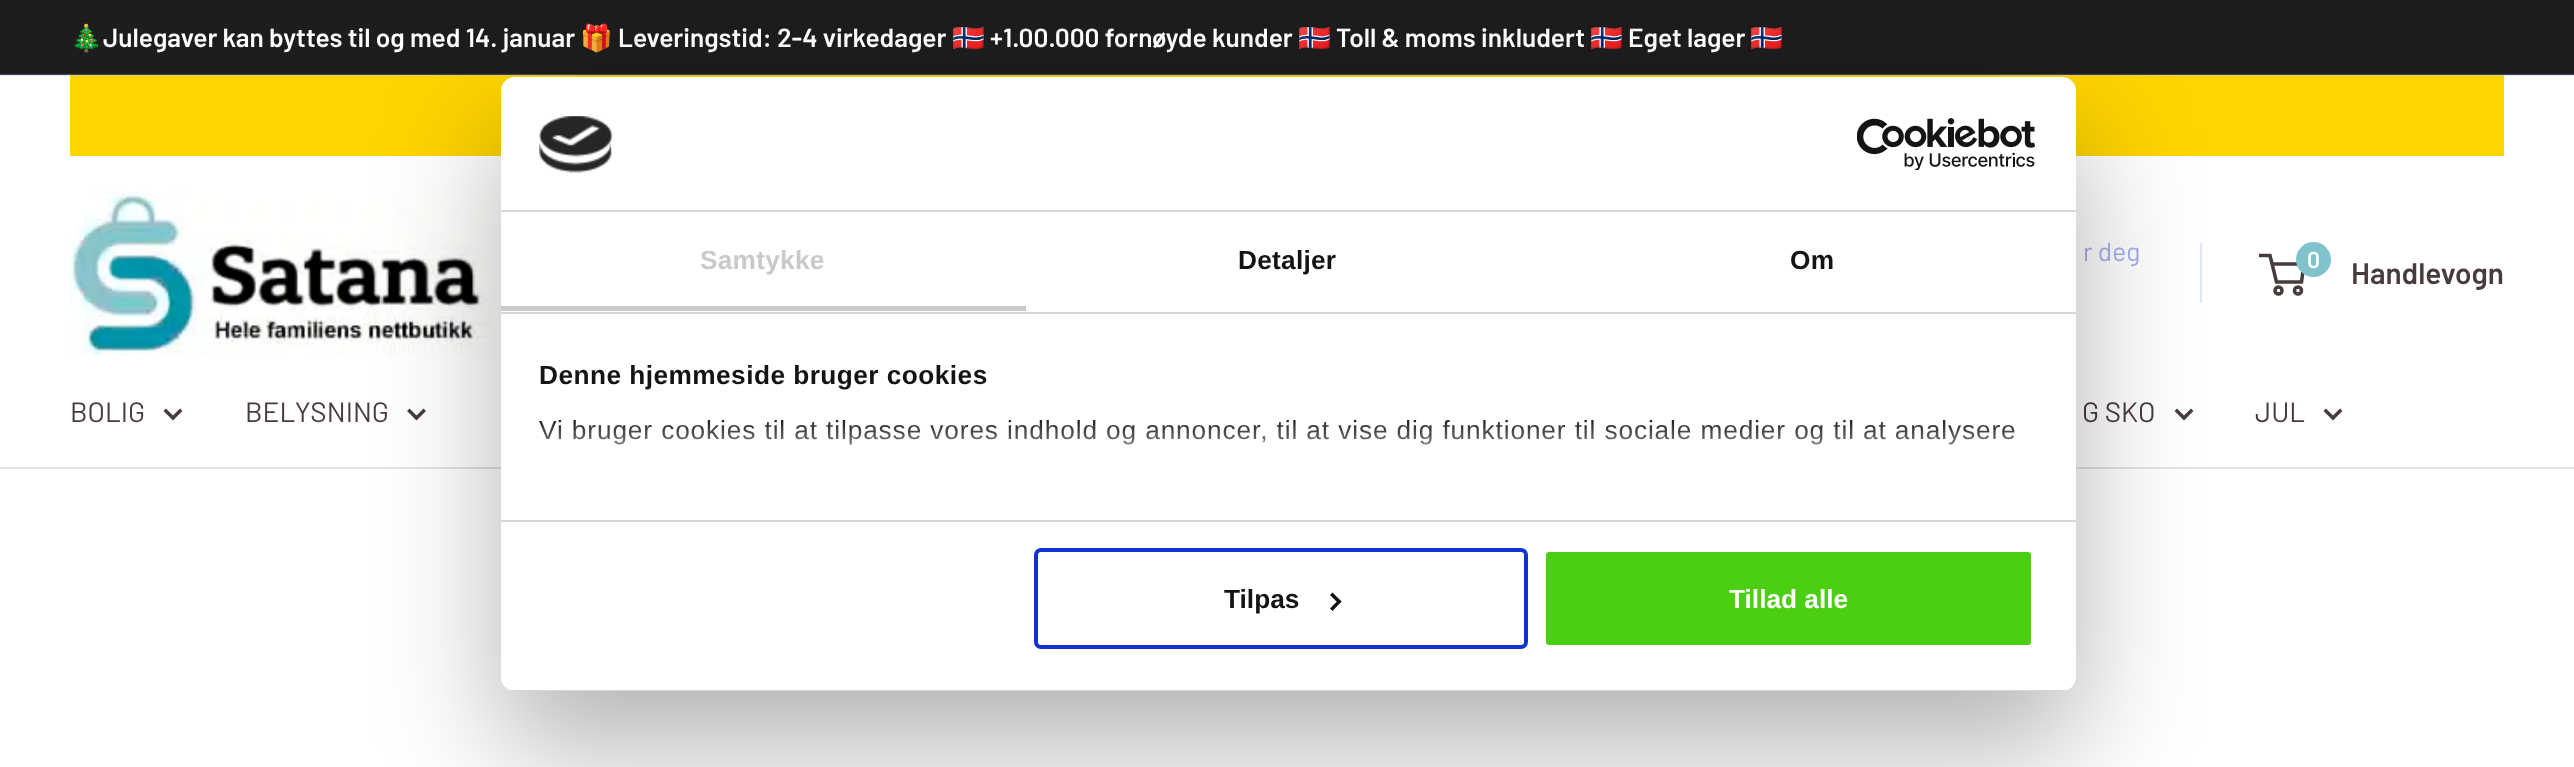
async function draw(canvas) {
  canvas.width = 2574;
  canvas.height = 767;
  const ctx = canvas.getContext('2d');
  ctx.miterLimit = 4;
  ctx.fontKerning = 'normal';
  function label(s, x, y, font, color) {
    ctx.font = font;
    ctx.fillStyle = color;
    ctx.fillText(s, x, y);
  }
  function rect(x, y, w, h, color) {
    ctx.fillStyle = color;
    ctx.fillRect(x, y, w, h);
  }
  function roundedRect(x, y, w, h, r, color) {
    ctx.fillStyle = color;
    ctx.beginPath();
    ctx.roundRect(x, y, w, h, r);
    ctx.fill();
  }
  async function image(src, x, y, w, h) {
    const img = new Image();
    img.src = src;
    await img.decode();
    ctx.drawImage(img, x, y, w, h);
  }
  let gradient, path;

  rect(0, 0, 2574, 767, '#fff');
  rect(0, 75, 2574, 1, '#e3e7fa');
  rect(0, 0, 2574, 74, '#1d1d1d');
  rect(0, 74, 2574, 1, '#45495c');
  label('🎄', 70, 47, 'bold 26.25px Noto Color Emoji', '#fff');
  label('Julegaver kan byttes til og med 14. januar', 103, 47, '600 26.25px Barlow', '#fff');
  label('🎁', 580, 47, 'bold 26.25px Noto Color Emoji', '#fff');
  label('Leveringstid: 2-4 virkedager', 618, 47, '600 26.25px Barlow', '#fff');
  label('🇳🇴', 952, 47, 'bold 26.25px Noto Color Emoji', '#fff');
  label('+1.00.000 fornøyde kunder', 990, 47, '600 26.25px Barlow', '#fff');
  label('🇳🇴', 1298, 47, 'bold 26.25px Noto Color Emoji', '#fff');
  label('Toll & moms inkludert', 1336, 47, '600 26.25px Barlow', '#fff');
  label('🇳🇴', 1590, 47, 'bold 26.25px Noto Color Emoji', '#fff');
  label('Eget lager', 1628, 47, '600 26.25px Barlow', '#fff');
  label('🇳🇴', 1750, 47, 'bold 26.25px Noto Color Emoji', '#fff');
  rect(70, 76, 2434, 80, '#ffd400');
  rect(70, 75, 2434, 1, '#e3c948');
  await image('assets/img1.png', 70, 191, 422, 164);
  label('r deg', 2083, 261, '26.25px Barlow', '#a3afef');
  rect(2200, 243, 2, 60, '#e3e7fa');
  ctx.beginPath();
  ctx.arc(2278.5, 290.5, 3.5, 0, 2 * Math.PI);
  ctx.strokeStyle = '#483b3b';
  ctx.lineWidth = 3.5;
  ctx.stroke();
  ctx.beginPath();
  ctx.arc(2298, 290.5, 3.5, 0, 2 * Math.PI);
  ctx.stroke();
  path = new Path2D('M2272 264H2304L2301.5 282H2276.5L2270 255.5H2259');
  ctx.stroke(path);
  ctx.fillStyle = '#81c3cc';
  ctx.beginPath();
  ctx.arc(2313.5, 259.5, 17.5, 0, 2 * Math.PI);
  ctx.fill();
  label('0', 2307, 268, '600 23px Barlow', '#fff');
  label('Handlevogn', 2351, 284, '600 29.75px Barlow', '#483b3b');
  rect(0, 467, 2574, 2, '#e1e3e4');
  label('BOLIG', 70, 422, '28px Barlow', '#483b3b');
  path = new Path2D('M180 411L173 418L166 411');
  ctx.lineCap = 'square';
  ctx.stroke(path);
  label('BELYSNING', 245, 422, '28px Barlow', '#483b3b');
  path = new Path2D('M423.5 411L416.5 418L409.5 411');
  ctx.stroke(path);
  label('G SKO', 2082, 422, '28px Barlow', '#483b3b');
  path = new Path2D('M2191 411L2184 418L2177 411');
  ctx.stroke(path);
  label('JUL', 2255, 422, '28px Barlow', '#483b3b');
  path = new Path2D('M2340 411L2333 418L2326 411');
  ctx.stroke(path);
  ctx.fillStyle = '#0000004d';
  ctx.filter = 'blur(59.5px)';
  ctx.beginPath();
  ctx.roundRect(501, 133, 1575, 614, 14);
  ctx.fill();
  ctx.filter = 'none';
  roundedRect(501, 77, 1575, 614, 14, '#fff');
  rect(501, 210, 1575, 2, '#d6d6d6');
  await image('assets/img2.png', 539, 116, 74, 57);
  await image('assets/img3.png', 1857, 118, 178, 52);
  rect(501, 312, 1575, 2, '#d6d6d6');
  rect(501, 306, 525, 5, '#c9c9c9');
  ctx.letterSpacing = '0.25px';
  label('Samtykke', 700, 269, 'bold 26.25px Liberation Sans', '#c9c9c9');
  label('Detaljer', 1238, 269, 'bold 26.25px Liberation Sans', '#141414');
  label('Om', 1790, 269, 'bold 26.25px Liberation Sans', '#141414');
  rect(501, 520, 1575, 2, '#d6d6d6');
  ctx.letterSpacing = '0.45px';
  label('Denne hjemmeside bruger cookies', 539, 384, 'bold 26.25px Liberation Sans', '#141414');
  ctx.letterSpacing = '0.88px';
  label('Vi bruger cookies til at tilpasse vores indhold og annoncer, til at vise dig funktioner til sociale medier og til at analysere', 539, 439, '26.25px Liberation Sans', '#141414');
  gradient = ctx.createLinearGradient(1270, 520, 1270, 417);
  gradient.addColorStop(0, '#fff');
  gradient.addColorStop(0.5, '#ffffffcc');
  gradient.addColorStop(1, '#ffffff00');
  ctx.fillStyle = gradient;
  ctx.fillRect(539, 420, 1475, 25);
  ctx.save();
  ctx.beginPath();
  ctx.roundRect(501, 77, 1575, 614, 14);
  ctx.clip();
  rect(510, 690, 1557, 1, '#d6d6d6');
  ctx.restore();
  ctx.beginPath();
  ctx.roundRect(1036, 550, 490, 97, 5);
  ctx.strokeStyle = '#1032cf';
  ctx.lineWidth = 4;
  ctx.stroke();
  ctx.letterSpacing = '0px';
  label('Tilpas', 1224, 608, 'bold 26.25px Liberation Sans', '#141414');
  path = new Path2D('M1332.5 592.5L1341.5 601.5L1339 604L1330 595Z');
  ctx.fill(path);
  path = new Path2D('M1339 599.5L1341.5 601.5L1332.5 611L1330 608.5Z');
  ctx.fill(path);
  ctx.fillStyle = '#4ccf10';
  ctx.beginPath();
  ctx.roundRect(1544, 550, 489, 97, 5);
  ctx.fill();
  ctx.strokeStyle = '#fff';
  ctx.stroke();
  label('Tillad alle', 1729, 608, 'bold 26.25px Liberation Sans', '#fff');
}

draw(document.querySelector('canvas'));
